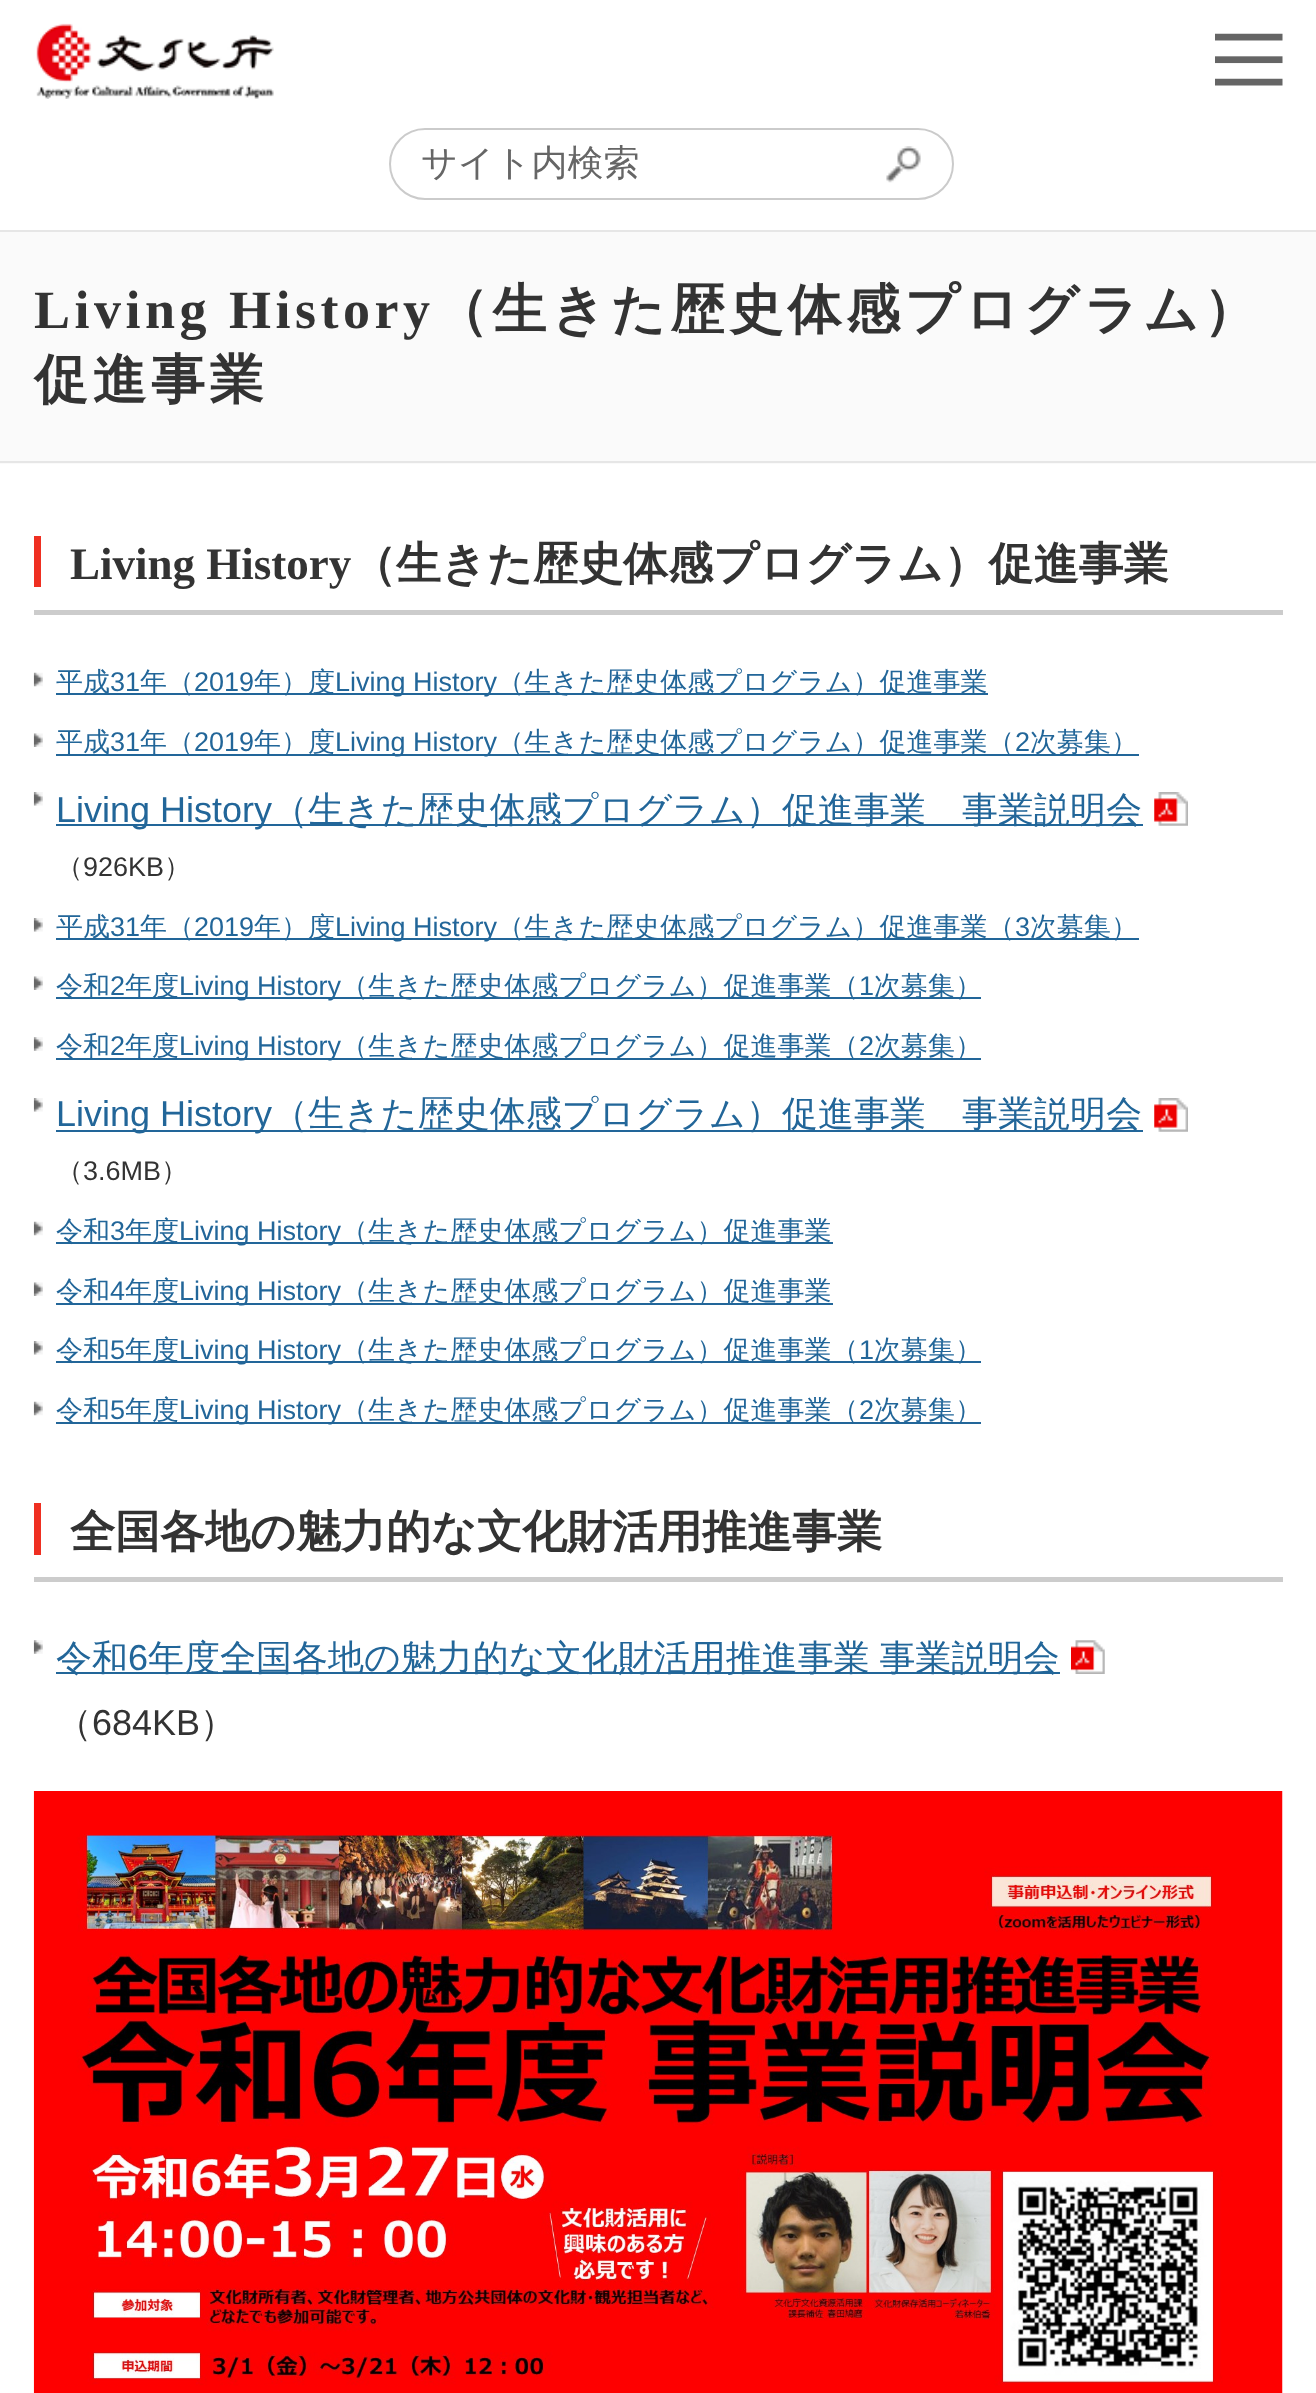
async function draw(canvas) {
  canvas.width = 1316;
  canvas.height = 2393;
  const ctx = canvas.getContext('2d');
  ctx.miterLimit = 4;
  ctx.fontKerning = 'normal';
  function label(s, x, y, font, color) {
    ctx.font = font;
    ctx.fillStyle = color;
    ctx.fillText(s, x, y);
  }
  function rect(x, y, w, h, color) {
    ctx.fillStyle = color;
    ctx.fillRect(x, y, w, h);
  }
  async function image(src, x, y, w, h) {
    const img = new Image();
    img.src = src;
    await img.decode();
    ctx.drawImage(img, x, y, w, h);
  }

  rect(0, 0, 1316, 2393, '#fff');
  await image('assets/img1.png', 1215, 33, 68, 53);
  await image('assets/img2.png', 36, 23, 238, 76);
  ctx.beginPath();
  ctx.roundRect(390, 129, 563, 70, 35);
  ctx.strokeStyle = '#cbcbcb';
  ctx.lineWidth = 2;
  ctx.stroke();
  label('サイト内検索', 421, 175, '500 36px WenQuanYi Zen Hei', '#666');
  await image('assets/img3.png', 886, 146, 35, 37);
  rect(0, 232, 1316, 232, '#fafafa');
  rect(0, 230, 1316, 2, '#e6e6e6');
  rect(0, 461, 1316, 2, '#e6e6e6');
  ctx.letterSpacing = '4.5px';
  label('Living History', 34, 328, 'bold 54px Liberation Serif', '#333');
  label('（生きた歴史体感プログラム）', 434, 328, 'bold 54px WenQuanYi Zen Hei', '#333');
  label('促進事業', 34, 398, 'bold 54px WenQuanYi Zen Hei', '#333');
  rect(34, 610, 1249, 5, '#ccc');
  rect(34, 536, 7, 51, '#ef2f21');
  ctx.letterSpacing = '0px';
  label('Living History', 70, 579, 'bold 45px Liberation Serif', '#333');
  label('（生きた歴史体感プログラム）促進事業', 351, 579, 'bold 45px WenQuanYi Zen Hei', '#333');
  await image('assets/img4.png', 33, 672, 10, 15);
  rect(56, 693, 932, 2, '#269');
  label('平成', 56, 691, '500 27px WenQuanYi Zen Hei', '#269');
  label('31', 110, 691, '27px Liberation Sans', '#269');
  label('年（', 140, 691, '500 27px WenQuanYi Zen Hei', '#269');
  label('2019', 194, 691, '27px Liberation Sans', '#269');
  label('年）度', 254, 691, '500 27px WenQuanYi Zen Hei', '#269');
  label('Living History', 335, 691, '27px Liberation Sans', '#269');
  label('（生きた歴史体感プログラム）促進事業', 497, 691, '500 27px WenQuanYi Zen Hei', '#269');
  await image('assets/img5.png', 33, 733, 10, 14);
  rect(56, 754, 1083, 2, '#269');
  label('平成', 56, 751, '500 27px WenQuanYi Zen Hei', '#269');
  label('31', 110, 751, '27px Liberation Sans', '#269');
  label('年（', 140, 751, '500 27px WenQuanYi Zen Hei', '#269');
  label('2019', 194, 751, '27px Liberation Sans', '#269');
  label('年）度', 254, 751, '500 27px WenQuanYi Zen Hei', '#269');
  label('Living History', 335, 751, '27px Liberation Sans', '#269');
  label('（生きた歴史体感プログラム）促進事業（', 497, 751, '500 27px WenQuanYi Zen Hei', '#269');
  label('2', 1015, 751, '27px Liberation Sans', '#269');
  label('次募集）', 1030, 751, '500 27px WenQuanYi Zen Hei', '#269');
  await image('assets/img6.png', 33, 792, 10, 14);
  rect(56, 824, 1087, 2, '#269');
  label('Living History', 56, 822, '36px Liberation Sans', '#269');
  label('（生きた歴史体感プログラム）促進事業', 272, 822, '500 36px WenQuanYi Zen Hei', '#269');
  label('事業説明会', 962, 822, '500 36px WenQuanYi Zen Hei', '#269');
  await image('assets/img7.png', 1154, 792, 34, 34);
  label('（', 56, 876, '500 27px WenQuanYi Zen Hei', '#333');
  label('926KB', 83, 876, '27px Liberation Sans', '#333');
  label('）', 164, 876, '500 27px WenQuanYi Zen Hei', '#333');
  await image('assets/img6.png', 33, 918, 10, 14);
  rect(56, 938, 1083, 2, '#269');
  label('平成', 56, 936, '500 27px WenQuanYi Zen Hei', '#269');
  label('31', 110, 936, '27px Liberation Sans', '#269');
  label('年（', 140, 936, '500 27px WenQuanYi Zen Hei', '#269');
  label('2019', 194, 936, '27px Liberation Sans', '#269');
  label('年）度', 254, 936, '500 27px WenQuanYi Zen Hei', '#269');
  label('Living History', 335, 936, '27px Liberation Sans', '#269');
  label('（生きた歴史体感プログラム）促進事業（', 497, 936, '500 27px WenQuanYi Zen Hei', '#269');
  label('3', 1015, 936, '27px Liberation Sans', '#269');
  label('次募集）', 1030, 936, '500 27px WenQuanYi Zen Hei', '#269');
  await image('assets/img5.png', 33, 976, 10, 14);
  rect(56, 997, 925, 2, '#269');
  label('令和', 56, 995, '500 27px WenQuanYi Zen Hei', '#269');
  label('2', 110, 995, '27px Liberation Sans', '#269');
  label('年度', 125, 995, '500 27px WenQuanYi Zen Hei', '#269');
  label('Living History', 179, 995, '27px Liberation Sans', '#269');
  label('（生きた歴史体感プログラム）促進事業（', 341, 995, '500 27px WenQuanYi Zen Hei', '#269');
  label('1', 859, 995, '27px Liberation Sans', '#269');
  label('次募集）', 874, 995, '500 27px WenQuanYi Zen Hei', '#269');
  await image('assets/img8.png', 33, 1037, 10, 14);
  rect(56, 1058, 925, 2, '#269');
  label('令和', 56, 1055, '500 27px WenQuanYi Zen Hei', '#269');
  label('2', 110, 1055, '27px Liberation Sans', '#269');
  label('年度', 125, 1055, '500 27px WenQuanYi Zen Hei', '#269');
  label('Living History', 179, 1055, '27px Liberation Sans', '#269');
  label('（生きた歴史体感プログラム）促進事業（', 341, 1055, '500 27px WenQuanYi Zen Hei', '#269');
  label('2', 859, 1055, '27px Liberation Sans', '#269');
  label('次募集）', 874, 1055, '500 27px WenQuanYi Zen Hei', '#269');
  await image('assets/img6.png', 33, 1098, 10, 14);
  rect(56, 1130, 1087, 2, '#269');
  label('Living History', 56, 1126, '36px Liberation Sans', '#269');
  label('（生きた歴史体感プログラム）促進事業', 272, 1126, '500 36px WenQuanYi Zen Hei', '#269');
  label('事業説明会', 962, 1126, '500 36px WenQuanYi Zen Hei', '#269');
  await image('assets/img7.png', 1154, 1098, 34, 34);
  label('（', 56, 1180, '500 27px WenQuanYi Zen Hei', '#333');
  label('3.6MB', 83, 1180, '27px Liberation Sans', '#333');
  label('）', 161, 1180, '500 27px WenQuanYi Zen Hei', '#333');
  await image('assets/img4.png', 33, 1221, 10, 15);
  rect(56, 1242, 777, 2, '#269');
  label('令和', 56, 1240, '500 27px WenQuanYi Zen Hei', '#269');
  label('3', 110, 1240, '27px Liberation Sans', '#269');
  label('年度', 125, 1240, '500 27px WenQuanYi Zen Hei', '#269');
  label('Living History', 179, 1240, '27px Liberation Sans', '#269');
  label('（生きた歴史体感プログラム）促進事業', 341, 1240, '500 27px WenQuanYi Zen Hei', '#269');
  await image('assets/img9.png', 33, 1282, 10, 14);
  rect(56, 1303, 777, 2, '#269');
  label('令和', 56, 1300, '500 27px WenQuanYi Zen Hei', '#269');
  label('4', 110, 1300, '27px Liberation Sans', '#269');
  label('年度', 125, 1300, '500 27px WenQuanYi Zen Hei', '#269');
  label('Living History', 179, 1300, '27px Liberation Sans', '#269');
  label('（生きた歴史体感プログラム）促進事業', 341, 1300, '500 27px WenQuanYi Zen Hei', '#269');
  await image('assets/img6.png', 33, 1341, 10, 14);
  rect(56, 1361, 925, 2, '#269');
  label('令和', 56, 1359, '500 27px WenQuanYi Zen Hei', '#269');
  label('5', 110, 1359, '27px Liberation Sans', '#269');
  label('年度', 125, 1359, '500 27px WenQuanYi Zen Hei', '#269');
  label('Living History', 179, 1359, '27px Liberation Sans', '#269');
  label('（生きた歴史体感プログラム）促進事業（', 341, 1359, '500 27px WenQuanYi Zen Hei', '#269');
  label('1', 859, 1359, '27px Liberation Sans', '#269');
  label('次募集）', 874, 1359, '500 27px WenQuanYi Zen Hei', '#269');
  await image('assets/img4.png', 33, 1401, 10, 15);
  rect(56, 1422, 925, 2, '#269');
  label('令和', 56, 1419, '500 27px WenQuanYi Zen Hei', '#269');
  label('5', 110, 1419, '27px Liberation Sans', '#269');
  label('年度', 125, 1419, '500 27px WenQuanYi Zen Hei', '#269');
  label('Living History', 179, 1419, '27px Liberation Sans', '#269');
  label('（生きた歴史体感プログラム）促進事業（', 341, 1419, '500 27px WenQuanYi Zen Hei', '#269');
  label('2', 859, 1419, '27px Liberation Sans', '#269');
  label('次募集）', 874, 1419, '500 27px WenQuanYi Zen Hei', '#269');
  rect(34, 1577, 1249, 5, '#ccc');
  rect(34, 1503, 7, 52, '#ef2f21');
  label('全国各地の魅力的な文化財活用推進事業', 70, 1547, 'bold 45px WenQuanYi Zen Hei', '#333');
  await image('assets/img8.png', 33, 1640, 10, 14);
  rect(56, 1672, 1004, 2, '#269');
  label('令和', 56, 1670, '500 36px WenQuanYi Zen Hei', '#269');
  label('6', 128, 1670, '36px Liberation Sans', '#269');
  ctx.wordSpacing = '-1px';
  label('年度全国各地の魅力的な文化財活用推進事業 事業説明会', 148, 1670, '500 36px WenQuanYi Zen Hei', '#269');
  await image('assets/img10.png', 1071, 1640, 34, 34);
  ctx.wordSpacing = '0px';
  label('（', 56, 1735, '500 36px WenQuanYi Zen Hei', '#333');
  label('684KB', 92, 1735, '36px Liberation Sans', '#333');
  label('）', 200, 1735, '500 36px WenQuanYi Zen Hei', '#333');
  await image('assets/img11.png', 33, 1791, 1250, 602);
}

draw(document.querySelector('canvas'));
